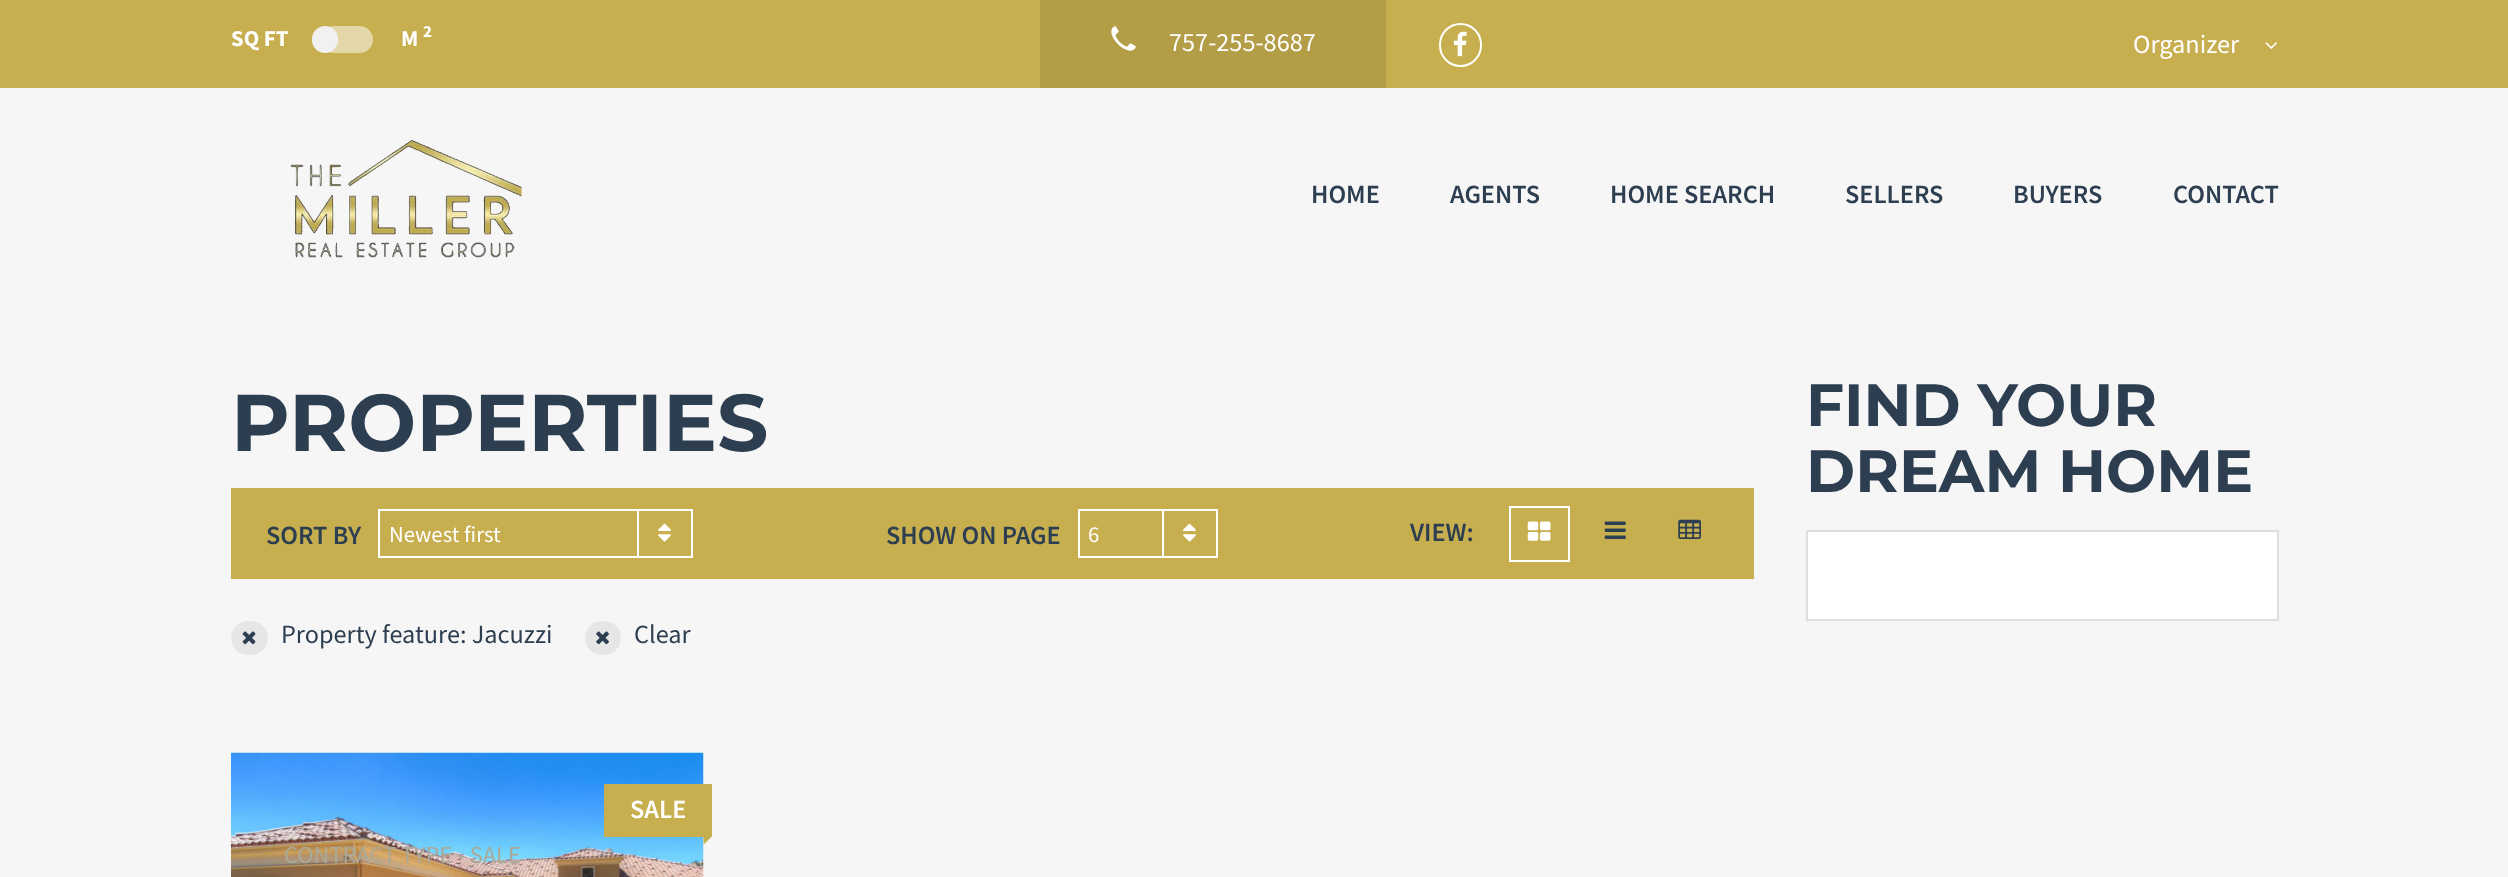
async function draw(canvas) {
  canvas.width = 2508;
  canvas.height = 877;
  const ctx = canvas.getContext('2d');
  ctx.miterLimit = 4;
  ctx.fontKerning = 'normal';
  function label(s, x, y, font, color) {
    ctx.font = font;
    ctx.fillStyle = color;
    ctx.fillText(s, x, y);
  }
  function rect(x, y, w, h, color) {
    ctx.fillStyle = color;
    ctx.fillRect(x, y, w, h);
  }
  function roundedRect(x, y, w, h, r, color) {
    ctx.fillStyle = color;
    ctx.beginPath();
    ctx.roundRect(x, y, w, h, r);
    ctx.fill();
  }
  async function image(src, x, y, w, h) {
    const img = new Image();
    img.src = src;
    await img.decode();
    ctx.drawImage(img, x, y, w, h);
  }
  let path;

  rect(0, 0, 2508, 877, '#f6f6f6');
  rect(0, 0, 2508, 88, '#c7af4f');
  label('SQ FT', 231, 46, 'bold 22.75px Source Sans Pro', '#fff');
  roundedRect(320, 26, 53, 27, 13.5, '#e3d7a7');
  roundedRect(312, 26, 26, 27, 13, '#f1f1f1');
  label('M', 401, 46, 'bold 22.75px Source Sans Pro', '#fff');
  label('2', 423, 37, 'bold 17px Source Sans Pro', '#fff');
  rect(1040, 0, 346, 88, '#b39e47');
  await image('assets/img1.png', 1111, 26, 25, 25);
  label('757-255-8687', 1169, 51, '26.25px Source Sans Pro', '#fff');
  ctx.beginPath();
  ctx.roundRect(1440, 24, 41, 42, 20.5);
  ctx.strokeStyle = '#fff';
  ctx.lineWidth = 2;
  ctx.stroke();
  await image('assets/img2.png', 1453, 31, 14, 26);
  label('Organizer', 2133, 53, '26.25px Source Sans Pro', '#fff');
  await image('assets/img3.png', 2265, 42, 12, 7);
  await image('assets/img4.png', 290, 140, 232, 118);
  label('HOME', 1311, 203, '600 26.25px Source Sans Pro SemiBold', '#2c3e50');
  label('AGENTS', 1450, 203, '600 26.25px Source Sans Pro SemiBold', '#2c3e50');
  label('HOME SEARCH', 1610, 203, '600 26.25px Source Sans Pro SemiBold', '#2c3e50');
  label('SELLERS', 1845, 203, '600 26.25px Source Sans Pro SemiBold', '#2c3e50');
  label('BUYERS', 2013, 203, '600 26.25px Source Sans Pro SemiBold', '#2c3e50');
  label('CONTACT', 2173, 203, '600 26.25px Source Sans Pro SemiBold', '#2c3e50');
  label('PROPERTIES', 231, 451, 'bold 80.5px Montserrat', '#2c3e50');
  rect(231, 488, 1523, 91, '#c7af4f');
  label('SORT BY', 266, 544, '600 26.25px Source Sans Pro SemiBold', '#2c3e50');
  ctx.strokeRect(379, 510, 313, 47);
  label('Newest first', 389, 542, '22.75px Source Sans Pro', '#fff');
  rect(637, 511, 2, 46, '#fff');
  await image('assets/img5.png', 658, 523, 13, 19);
  label('SHOW ON PAGE', 886, 544, '600 26.25px Source Sans Pro SemiBold', '#2c3e50');
  ctx.strokeRect(1079, 510, 138, 47);
  label('6', 1088, 542, '22.75px Source Sans Pro', '#fff');
  rect(1162, 511, 2, 46, '#fff');
  await image('assets/img5.png', 1183, 523, 13, 19);
  label('VIEW:', 1410, 541, '600 26.25px Source Sans Pro SemiBold', '#2c3e50');
  ctx.strokeRect(1510, 507, 59, 54);
  await image('assets/img6.png', 1527, 521, 24, 20);
  await image('assets/img7.png', 1604, 521, 22, 18);
  await image('assets/img8.png', 1678, 519, 23, 20);
  roundedRect(231, 621, 37, 34, 17, '#e6e6e6');
  await image('assets/img9.png', 242, 631, 14, 14);
  label('Property feature: Jacuzzi', 281, 643, '26.25px Source Sans Pro', '#2c3e50');
  roundedRect(585, 621, 36, 34, 17, '#e6e6e6');
  await image('assets/img10.png', 596, 631, 13, 14);
  label('Clear', 634, 643, '26.25px Source Sans Pro', '#2c3e50');
  await image('assets/img11.png', 231, 752, 473, 125);
  rect(604, 784, 108, 53, '#c7af4f');
  label('SALE', 630, 818, '600 26.25px Source Sans Pro SemiBold', '#fff');
  ctx.fillStyle = '#c7af4f';
  path = new Path2D('M703.5 836.5H712L703.5 845Z');
  ctx.fill(path);
  ctx.fillStyle = '#f6f6f6';
  path = new Path2D('M712 836.5V845H703.5Z');
  ctx.fill(path);
  label('CONTRACT TYPE - SALE', 284, 863, '24.5px Source Sans Pro', '#aaa998');
  label('FIND YOUR', 1806, 426, 'bold 59.5px Montserrat', '#2c3e50');
  label('DREAM HOME', 1806, 492, 'bold 59.5px Montserrat', '#2c3e50');
  ctx.fillStyle = '#fff';
  ctx.beginPath();
  ctx.rect(1807, 531, 471, 89);
  ctx.fill();
  ctx.strokeStyle = '#dedede';
  ctx.stroke();
}

draw(document.querySelector('canvas'));
